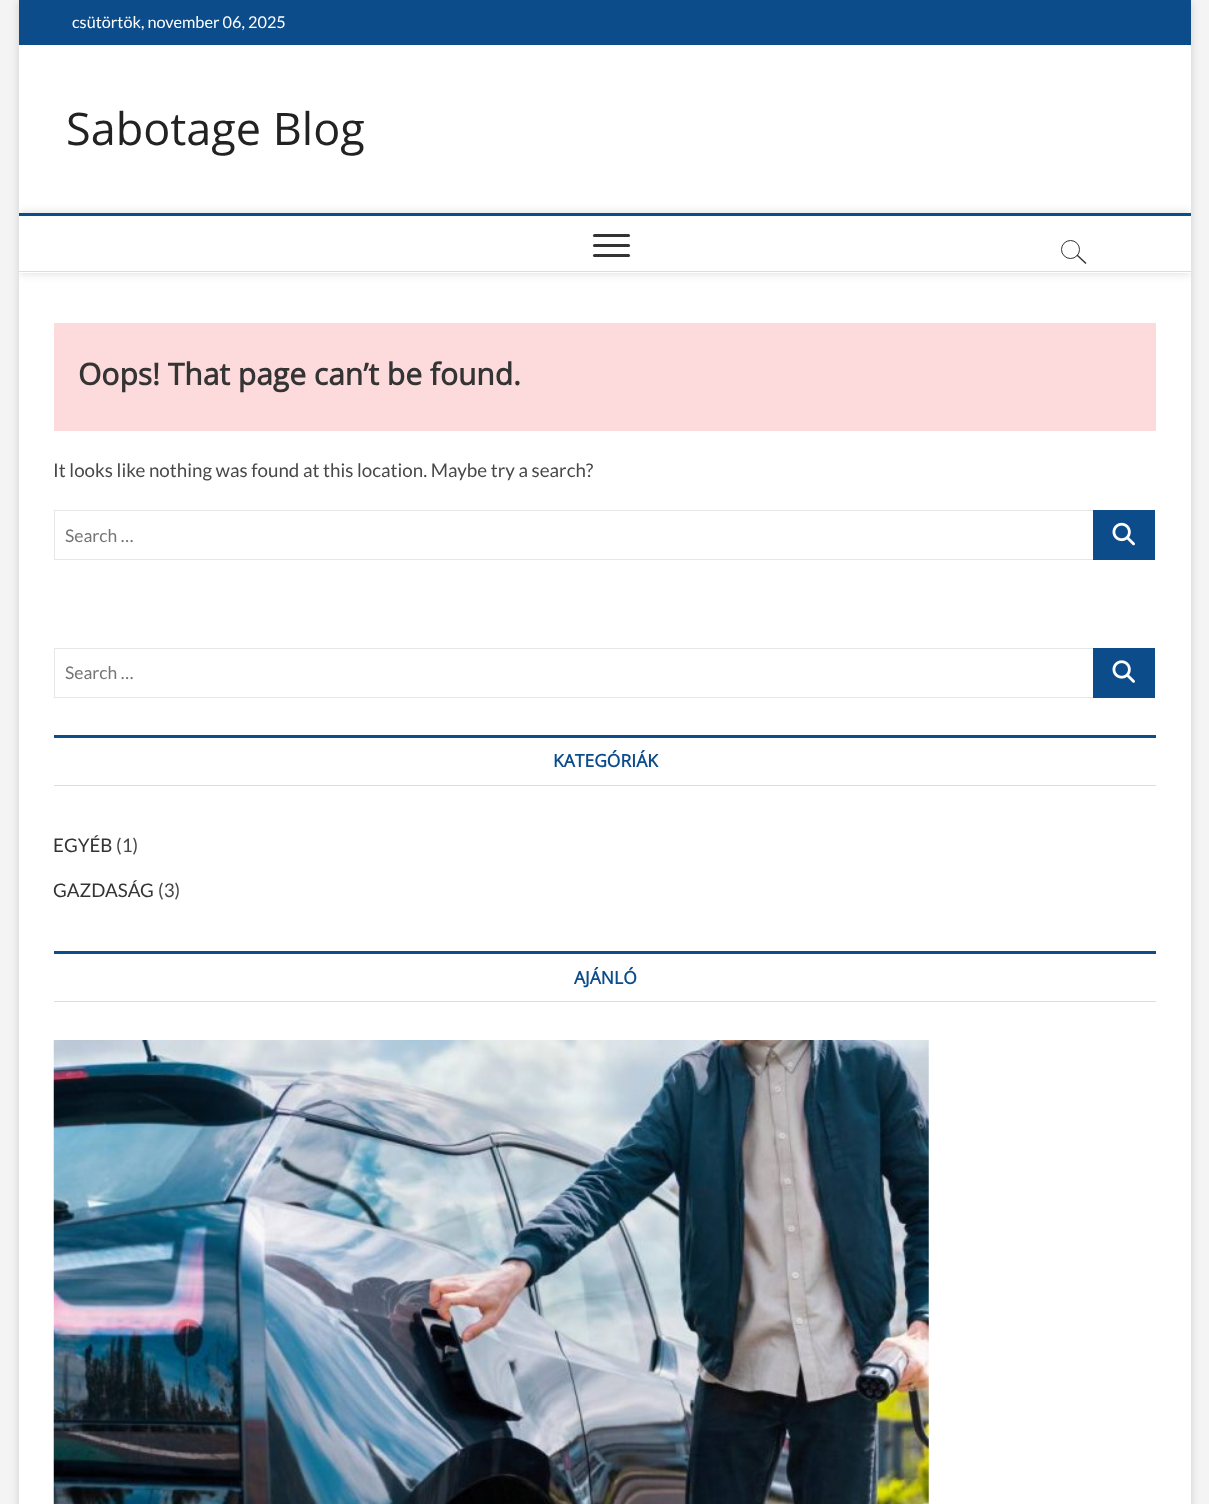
async function draw(canvas) {
  canvas.width = 1209;
  canvas.height = 1504;
  const ctx = canvas.getContext('2d');
  ctx.miterLimit = 4;
  ctx.fontKerning = 'normal';
  function label(s, x, y, font, color) {
    ctx.font = font;
    ctx.fillStyle = color;
    ctx.fillText(s, x, y);
  }
  function rect(x, y, w, h, color) {
    ctx.fillStyle = color;
    ctx.fillRect(x, y, w, h);
  }
  function roundedRect(x, y, w, h, r, color) {
    ctx.fillStyle = color;
    ctx.beginPath();
    ctx.roundRect(x, y, w, h, r);
    ctx.fill();
  }
  async function image(src, x, y, w, h) {
    const img = new Image();
    img.src = src;
    await img.decode();
    ctx.drawImage(img, x, y, w, h);
  }
  let path;

  rect(0, 0, 1209, 1504, '#f4f4f4');
  ctx.fillStyle = '#00000026';
  ctx.filter = 'blur(4px)';
  ctx.beginPath();
  ctx.rect(19, 1, 1172, 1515);
  ctx.fill();
  ctx.filter = 'none';
  rect(19, 45, 1172, 1459, '#fff');
  rect(19, 0, 1172, 45, '#0c4c8a');
  label('csütörtök, november 06, 2025', 72, 28, '16.25px Lato', '#fff');
  label('Sabotage Blog', 66, 145, '45px Open Sans', '#222');
  ctx.save();
  ctx.beginPath();
  ctx.rect(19, 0, 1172, 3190);
  ctx.clip();
  ctx.fillStyle = '#00000026';
  ctx.filter = 'blur(5px)';
  ctx.beginPath();
  ctx.rect(19, 213, 1172, 60);
  ctx.fill();
  ctx.filter = 'none';
  ctx.restore();
  rect(19, 216, 1172, 57, '#fff');
  rect(19, 213, 1172, 3, '#0c4c8a');
  rect(19, 271, 1172, 1, '#ddd');
  roundedRect(593, 244, 37, 3, 1.5, '#333');
  roundedRect(593, 234, 37, 3, 1.5, '#333');
  roundedRect(593, 254, 37, 3, 1.5, '#333');
  ctx.beginPath();
  ctx.arc(1070.5, 249.5, 9, 0, 2 * Math.PI);
  ctx.strokeStyle = '#333';
  ctx.stroke();
  path = new Path2D('M1076.5 255.5L1077.5 254.5L1086.5 263L1085.5 264Z');
  ctx.fill(path);
  rect(54, 323, 1102, 108, '#fddbdd');
  label('Oops! That page can’t be found.', 78, 385, 'bold 30px Open Sans', '#343434');
  label('It looks like nothing was found at this location. Maybe try a search?', 53, 477, '18.75px Lato', '#484848');
  ctx.strokeStyle = '#e6e6e6';
  ctx.strokeRect(54.5, 510.5, 1039, 49);
  label('Search …', 65, 542, '17.5px Lato', '#757575');
  rect(1093, 510, 62, 50, '#0c4c8a');
  await image('assets/img1.png', 1112, 522, 23, 24);
  ctx.strokeRect(54.5, 648.5, 1039, 49);
  label('Search …', 65, 679, '17.5px Lato', '#757575');
  rect(1093, 648, 62, 50, '#0c4c8a');
  await image('assets/img2.png', 1112, 660, 23, 23);
  rect(54, 735, 1102, 3, '#0c4c8a');
  rect(54, 785, 1102, 1, '#ddd');
  label('KATEGÓRIÁK', 553, 767, 'bold 17.5px Open Sans', '#0c4c8a');
  label('EGYÉB', 53, 852, '18.75px Lato', '#343434');
  label('(1)', 116, 852, '18.75px Lato', '#484848');
  label('GAZDASÁG', 53, 897, '18.75px Lato', '#343434');
  label('(3)', 158, 897, '18.75px Lato', '#484848');
  rect(54, 951, 1102, 3, '#0c4c8a');
  rect(54, 1001, 1102, 1, '#ddd');
  label('AJÁNLÓ', 574, 984, 'bold 17.5px Open Sans', '#0c4c8a');
  await image('assets/img3.png', 53, 1040, 876, 464);
}

draw(document.querySelector('canvas'));
